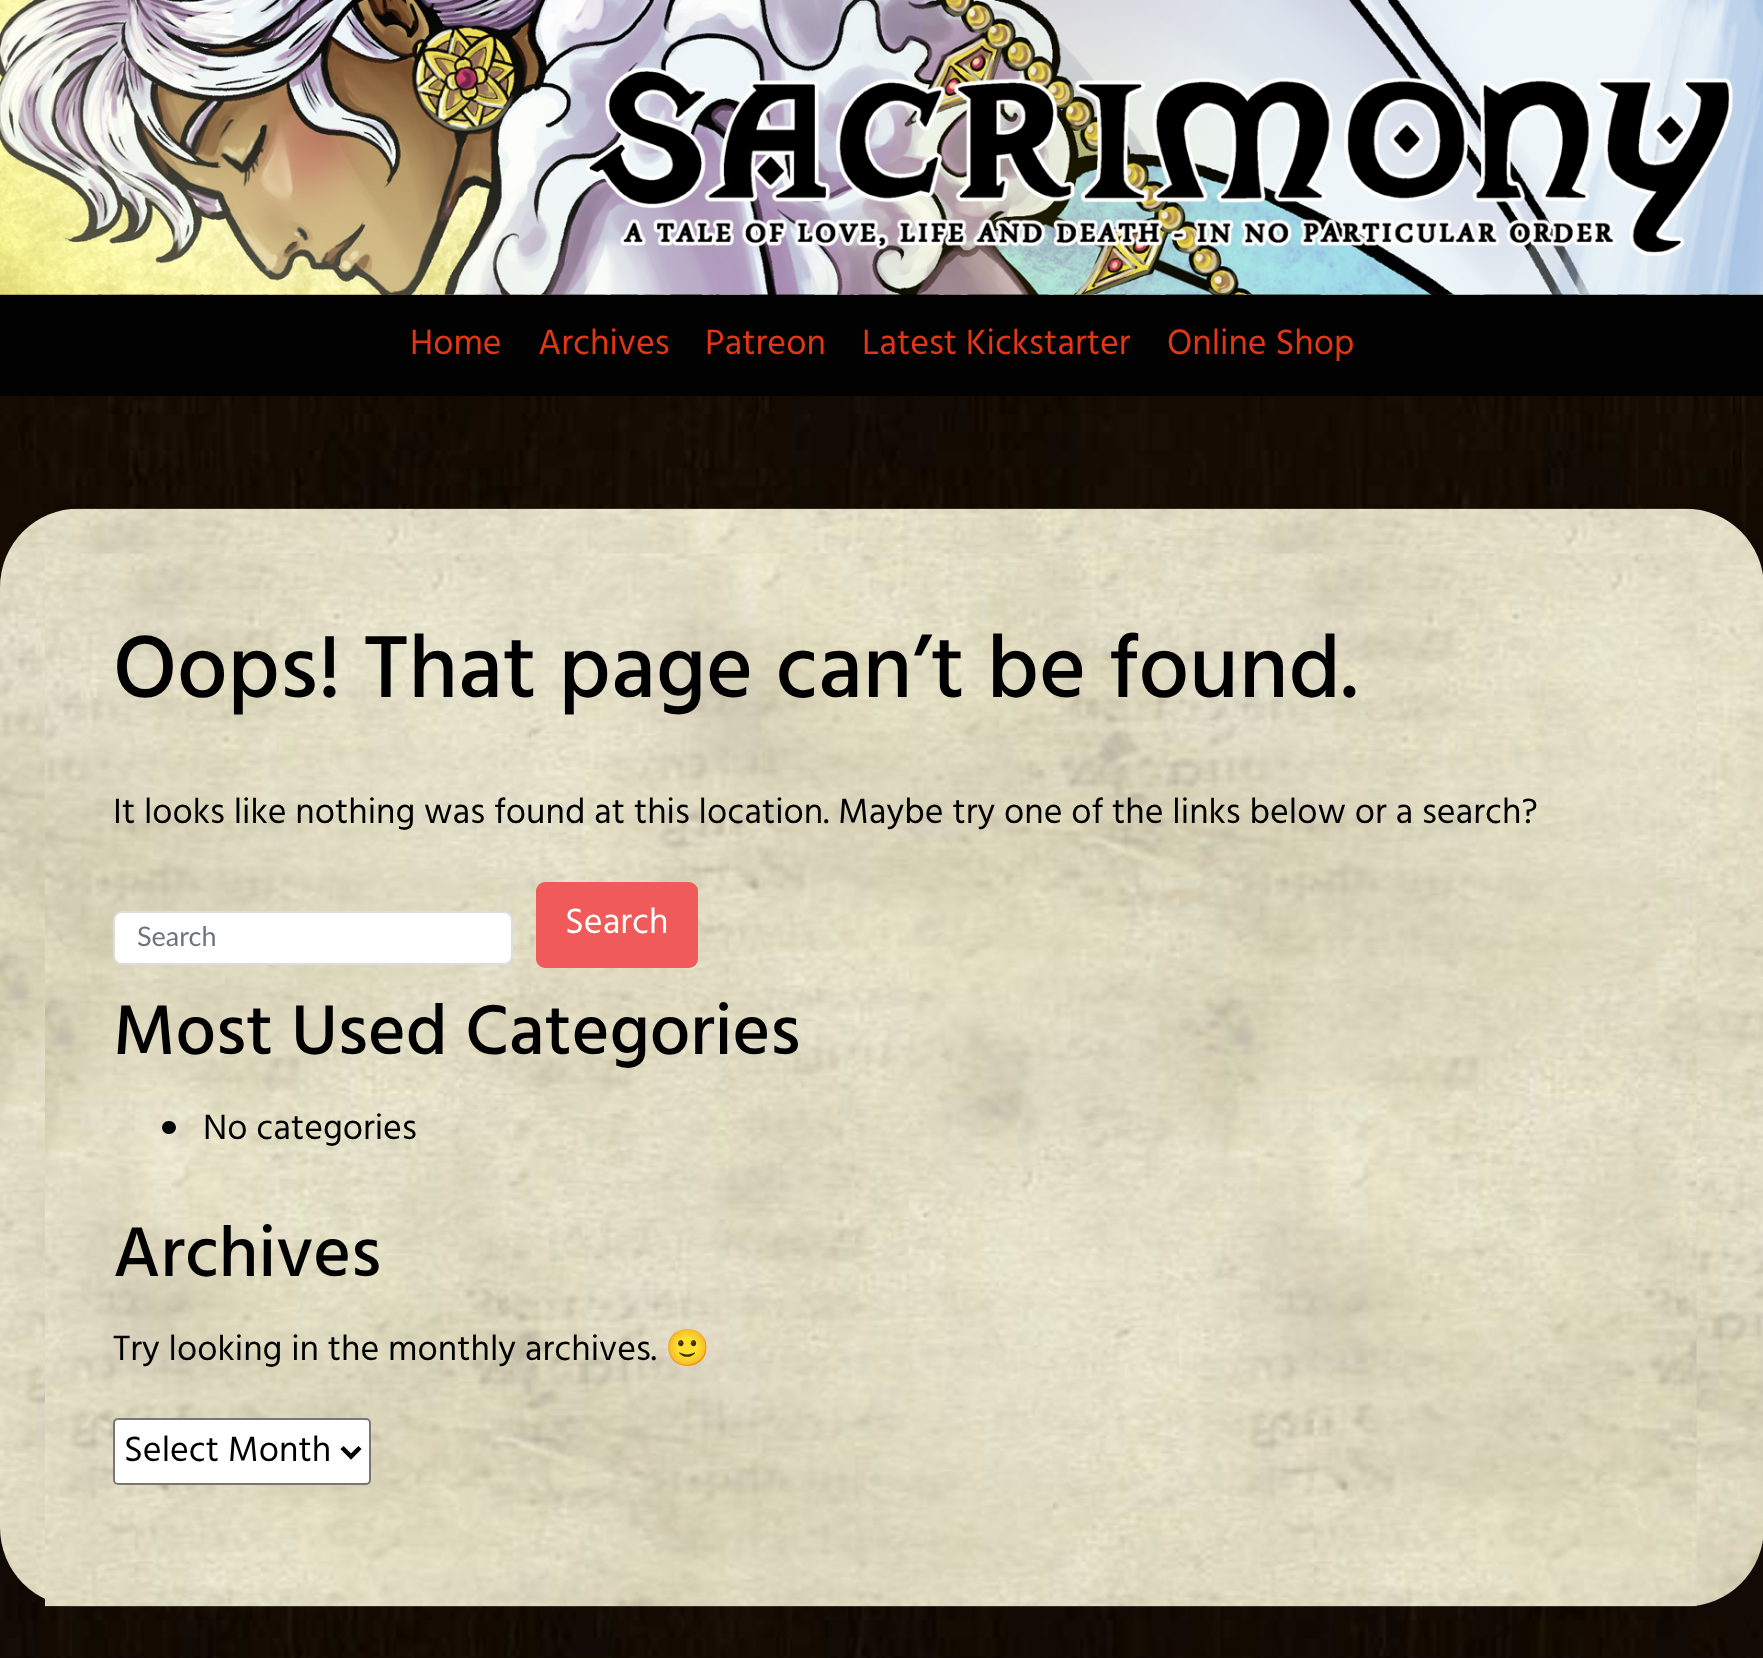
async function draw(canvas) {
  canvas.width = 1763;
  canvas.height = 1658;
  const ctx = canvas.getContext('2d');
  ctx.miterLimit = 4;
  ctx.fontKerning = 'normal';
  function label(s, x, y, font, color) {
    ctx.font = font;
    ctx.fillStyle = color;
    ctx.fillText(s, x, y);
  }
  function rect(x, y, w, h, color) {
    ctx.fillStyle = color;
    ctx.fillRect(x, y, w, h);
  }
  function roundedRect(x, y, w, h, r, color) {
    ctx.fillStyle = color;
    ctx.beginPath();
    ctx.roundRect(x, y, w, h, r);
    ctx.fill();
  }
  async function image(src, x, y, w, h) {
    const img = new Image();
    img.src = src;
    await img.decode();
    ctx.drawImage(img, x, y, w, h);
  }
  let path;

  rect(0, 0, 1763, 1658, '#fff');
  await image('assets/img1.png', 0, 294, 1763, 1364);
  await image('assets/img2.png', 0, 0, 1763, 295);
  await image('assets/img3.png', 0, 294, 1763, 1);
  rect(0, 295, 1763, 101, '#020202');
  label('Home', 410, 354, '36px Hind', '#e23614');
  label('Archives', 538, 354, '36px Hind', '#e23614');
  label('Patreon', 705, 354, '36px Hind', '#e23614');
  label('Latest Kickstarter', 862, 354, '36px Hind', '#e23614');
  label('Online Shop', 1167, 354, '36px Hind', '#e23614');
  await image('assets/img4.png', 0, 508, 1763, 1099);
  await image('assets/img5.png', 45, 553, 1652, 1054);
  label('Oops! That page can’t be found.', 113, 697, '500 90px Hind', '#000');
  label('It looks like nothing was found at this location. Maybe try one of the links below or a search?', 113, 823, '36px Hind', '#000');
  ctx.fillStyle = '#f15a5a';
  ctx.beginPath();
  ctx.roundRect(537, 883, 160, 84, 8);
  ctx.fill();
  ctx.strokeStyle = '#f15a5a';
  ctx.lineWidth = 2;
  ctx.stroke();
  label('Search', 565, 933, '36px Hind', '#fff');
  ctx.beginPath();
  ctx.roundRect(114, 912, 398, 52, 8);
  ctx.fill();
  ctx.strokeStyle = '#ddd';
  ctx.stroke();
  label('Search', 137, 946, '27px Lato', '#6c757d');
  label('Most Used Categories', 113, 1054, '500 72px Hind', '#000');
  roundedRect(162, 1121, 14, 13, 6.5, '#000');
  label('No categories', 203, 1139, '36px Hind', '#000');
  label('Archives', 113, 1276, '500 72px Hind', '#000');
  label('Try looking in the monthly archives.', 113, 1360, '36px Hind', '#000');
  label('🙂', 665, 1360, '36px Noto Color Emoji', '#000');
  ctx.fillStyle = '#fff';
  ctx.beginPath();
  ctx.roundRect(114, 1419, 256, 65, 4);
  ctx.fill();
  ctx.strokeStyle = '#767676';
  ctx.stroke();
  path = new Path2D('M342 1447.5L351 1456.5L360 1447.5');
  ctx.strokeStyle = '#000';
  ctx.lineWidth = 4.5;
  ctx.stroke(path);
  label('Select Month', 124, 1461, '36px Hind', '#000');
}

draw(document.querySelector('canvas'));
